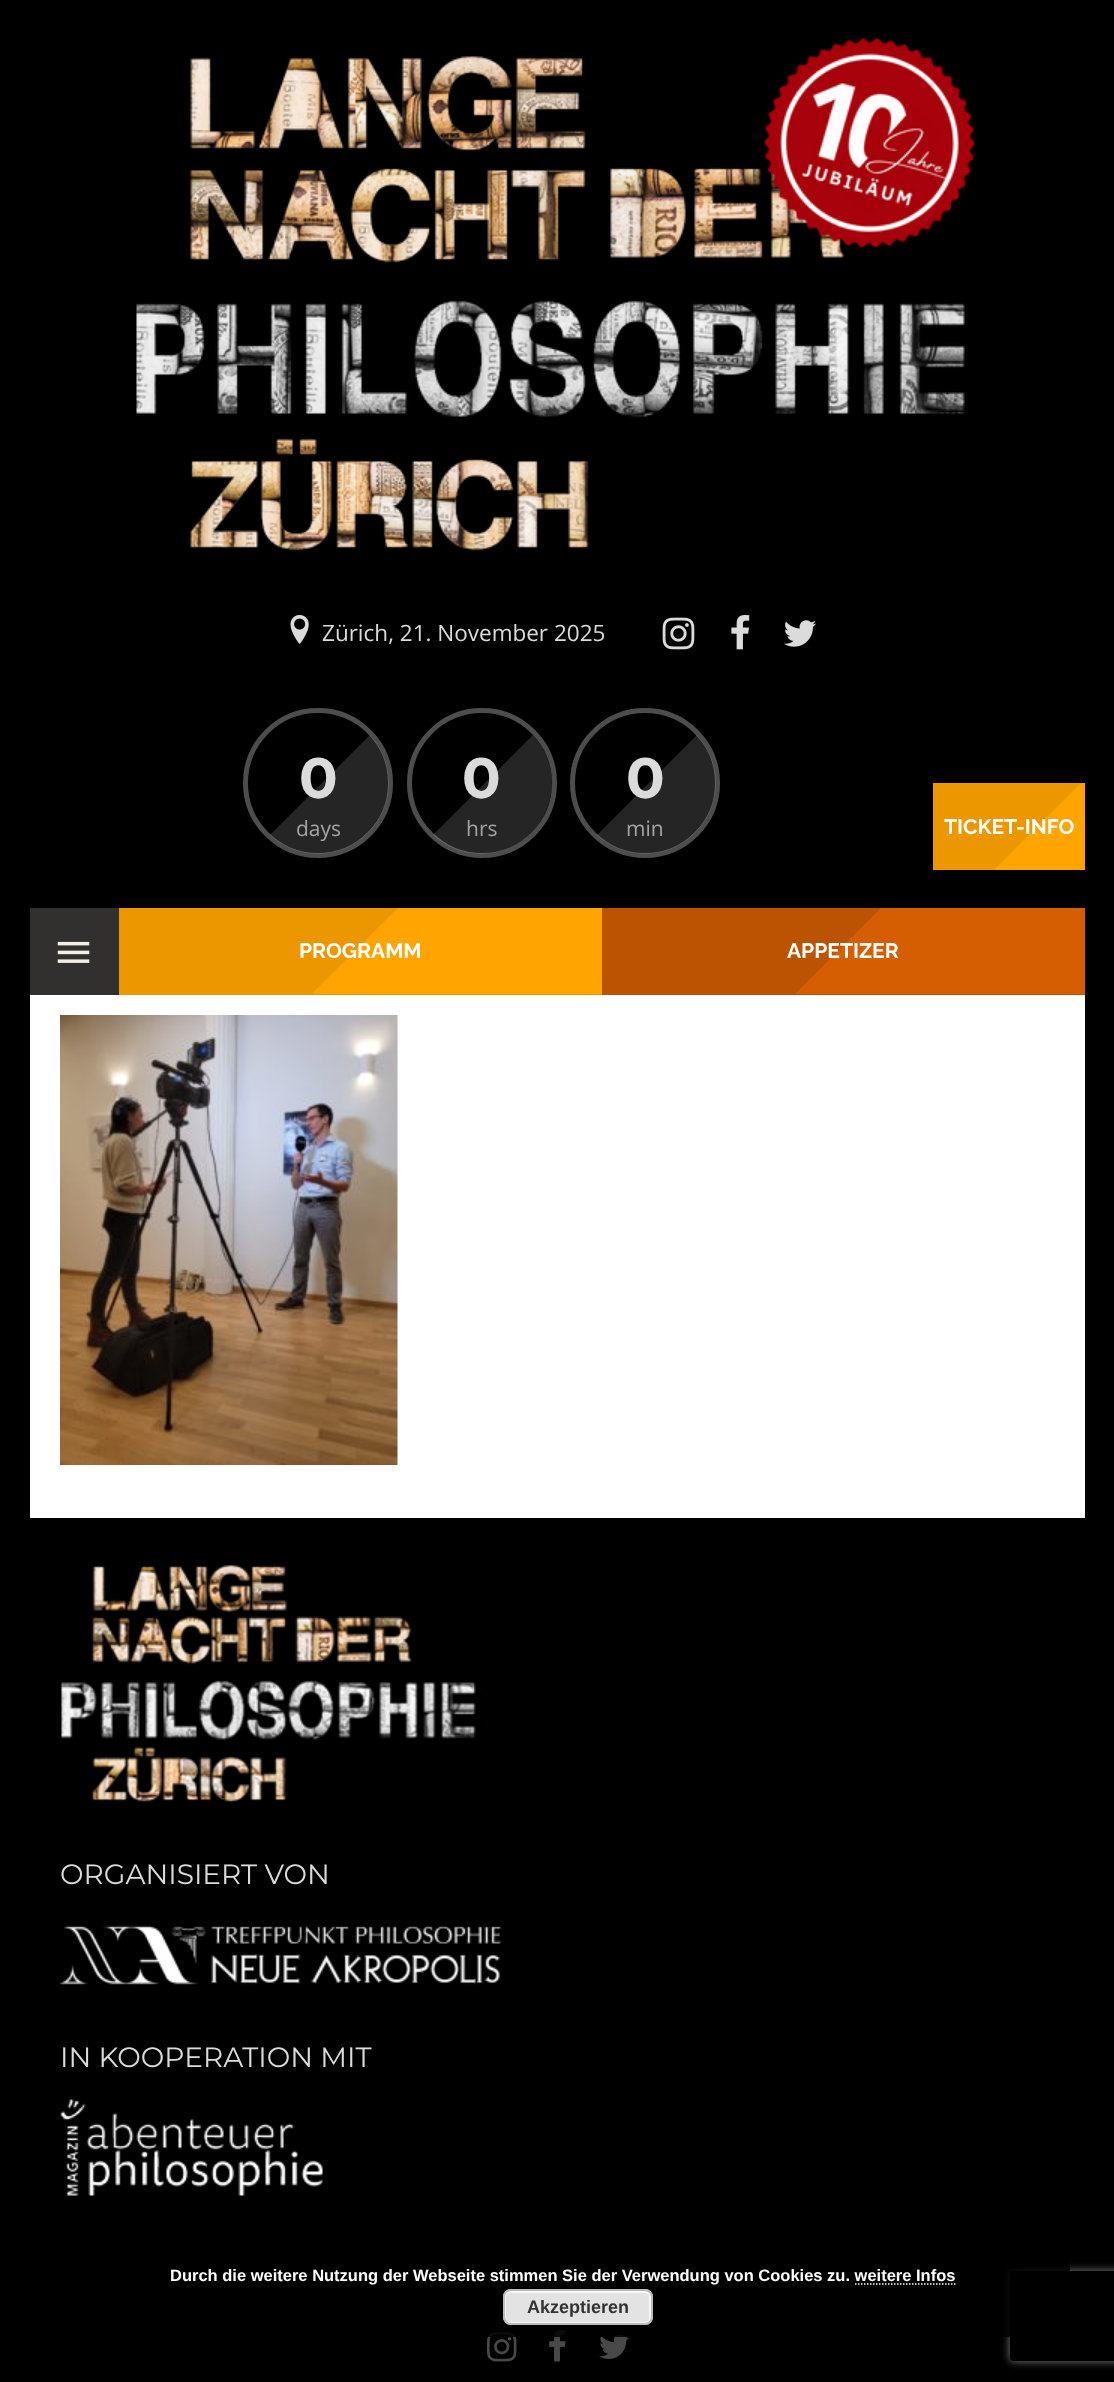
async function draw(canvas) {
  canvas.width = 1114;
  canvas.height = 2382;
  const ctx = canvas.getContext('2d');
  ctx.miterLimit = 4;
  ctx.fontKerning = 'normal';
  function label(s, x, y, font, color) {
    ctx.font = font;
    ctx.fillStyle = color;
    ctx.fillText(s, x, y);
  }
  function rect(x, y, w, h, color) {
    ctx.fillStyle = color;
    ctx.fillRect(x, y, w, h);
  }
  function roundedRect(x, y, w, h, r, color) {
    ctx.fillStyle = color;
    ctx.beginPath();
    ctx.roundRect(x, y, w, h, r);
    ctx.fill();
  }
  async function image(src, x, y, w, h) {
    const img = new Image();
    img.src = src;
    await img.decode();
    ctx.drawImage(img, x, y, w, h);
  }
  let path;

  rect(0, 0, 1114, 2382, '#000');
  await image('assets/img1.png', 136, 37, 840, 514);
  await image('assets/img2.png', 290, 614, 19, 30);
  label('Zürich, 21. November 2025', 322, 641, '22.5px Open Sans', '#dbdbdb');
  await image('assets/img3.png', 662, 617, 33, 33);
  await image('assets/img4.png', 731, 615, 19, 35);
  await image('assets/img5.png', 783, 620, 34, 27);
  ctx.beginPath();
  ctx.arc(318, 783, 72.5, 0, 2 * Math.PI);
  ctx.strokeStyle = '#4d4d4d';
  ctx.lineWidth = 5;
  ctx.stroke();
  label('0', 299, 798, 'bold 57px Montserrat', '#dbdbdb');
  ctx.fillStyle = '#dbdbdb2b';
  path = new Path2D('M370 735C396 763 395 806 368 833C341 860 298 861 270 835Z');
  ctx.fill(path);
  label('days', 296, 836, '21px Open Sans', '#a4a4a4');
  ctx.beginPath();
  ctx.arc(482, 783, 72.5, 0, 2 * Math.PI);
  ctx.stroke();
  label('0', 462, 798, 'bold 57px Montserrat', '#dbdbdb');
  ctx.fillStyle = '#dbdbdb2b';
  path = new Path2D('M533 735C559 763 558 806 531 833C504 860 461 861 433 835Z');
  ctx.fill(path);
  label('hrs', 466, 836, '21px Open Sans', '#a4a4a4');
  ctx.beginPath();
  ctx.arc(645, 783, 72.5, 0, 2 * Math.PI);
  ctx.stroke();
  label('0', 626, 798, 'bold 57px Montserrat', '#dbdbdb');
  ctx.fillStyle = '#dbdbdb2b';
  path = new Path2D('M697 735C723 763 722 806 695 833C668 860 625 861 597 835Z');
  ctx.fill(path);
  label('min', 626, 836, '21px Open Sans', '#a4a4a4');
  rect(933, 783, 148, 87, '#ec9700');
  ctx.save();
  ctx.beginPath();
  ctx.rect(993, 783, 92, 87);
  ctx.clip();
  ctx.fillStyle = '#ffa401';
  path = new Path2D('M994 870L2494-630V870Z');
  ctx.fill(path);
  ctx.restore();
  label('TICKET-INFO', 944, 834, 'bold 21px Raleway', '#fff');
  rect(30, 908, 89, 87, '#31302e');
  await image('assets/img6.png', 57, 941, 33, 22);
  rect(119, 908, 483, 87, '#ec9700');
  ctx.save();
  ctx.beginPath();
  ctx.rect(312, 908, 290, 87);
  ctx.clip();
  ctx.fillStyle = '#ffa401';
  path = new Path2D('M312 994L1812-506V994Z');
  ctx.fill(path);
  ctx.restore();
  label('PROGRAMM', 299, 958, 'bold 21px Raleway', '#fff');
  rect(602, 908, 483, 87, '#bc5303');
  ctx.save();
  ctx.beginPath();
  ctx.rect(795, 908, 290, 87);
  ctx.clip();
  ctx.fillStyle = '#d55e03';
  path = new Path2D('M795 994L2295-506V994Z');
  ctx.fill(path);
  ctx.restore();
  label('APPETIZER', 787, 958, 'bold 21px Raleway', '#fff');
  rect(30, 995, 1055, 523, '#fff');
  await image('assets/img7.png', 60, 1015, 338, 450);
  await image('assets/img8.png', 61, 1565, 426, 237);
  label('ORGANISIERT VON', 60, 1884, '28px Montserrat', '#dbdbdb');
  await image('assets/img9.png', 60, 1925, 442, 60);
  label('IN KOOPERATION MIT', 60, 2067, '28px Montserrat', '#dbdbdb');
  await image('assets/img10.png', 60, 2099, 263, 97);
  await image('assets/img11.png', 487, 2331, 30, 31);
  await image('assets/img12.png', 549, 2330, 17, 32);
  await image('assets/img13.png', 599, 2334, 30, 25);
  ctx.save();
  path = new Path2D('M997 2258H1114V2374H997ZM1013 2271H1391C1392.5 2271 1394 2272.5 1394 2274V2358C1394 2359.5 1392.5 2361 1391 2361H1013C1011.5 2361 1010 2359.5 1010 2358V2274C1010 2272.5 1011.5 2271 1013 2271Z');
  ctx.clip(path, 'evenodd');
  ctx.fillStyle = '#808080';
  ctx.filter = 'blur(4px)';
  ctx.beginPath();
  ctx.roundRect(1010, 2271, 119, 90, 3);
  ctx.fill();
  ctx.filter = 'none';
  ctx.restore();
  roundedRect(56, 2250, 1014, 87, 8, '#000000d9');
  label('Durch die weitere Nutzung der Webseite stimmen Sie der Verwendung von Cookies zu. weitere Infos', 170, 2281, 'bold 16.5px Liberation Sans', '#fff');
  path = new Path2D('M855 2284H955.5');
  ctx.strokeStyle = '#fff';
  ctx.lineWidth = 1.5;
  ctx.setLineDash([1.5, 1.5]);
  ctx.stroke(path);
  roundedRect(503, 2289, 150, 36, 8, '#e3e3e3');
  ctx.beginPath();
  ctx.roundRect(505, 2292, 145, 31, 5);
  ctx.strokeStyle = '#f6f6f6';
  ctx.lineWidth = 2;
  ctx.setLineDash([]);
  ctx.stroke();
  ctx.beginPath();
  ctx.roundRect(504, 2290, 148, 34, 7);
  ctx.strokeStyle = '#bbb';
  ctx.stroke();
  label('Akzeptieren', 527, 2313, 'bold 18px Liberation Sans', '#333');
}

draw(document.querySelector('canvas'));
